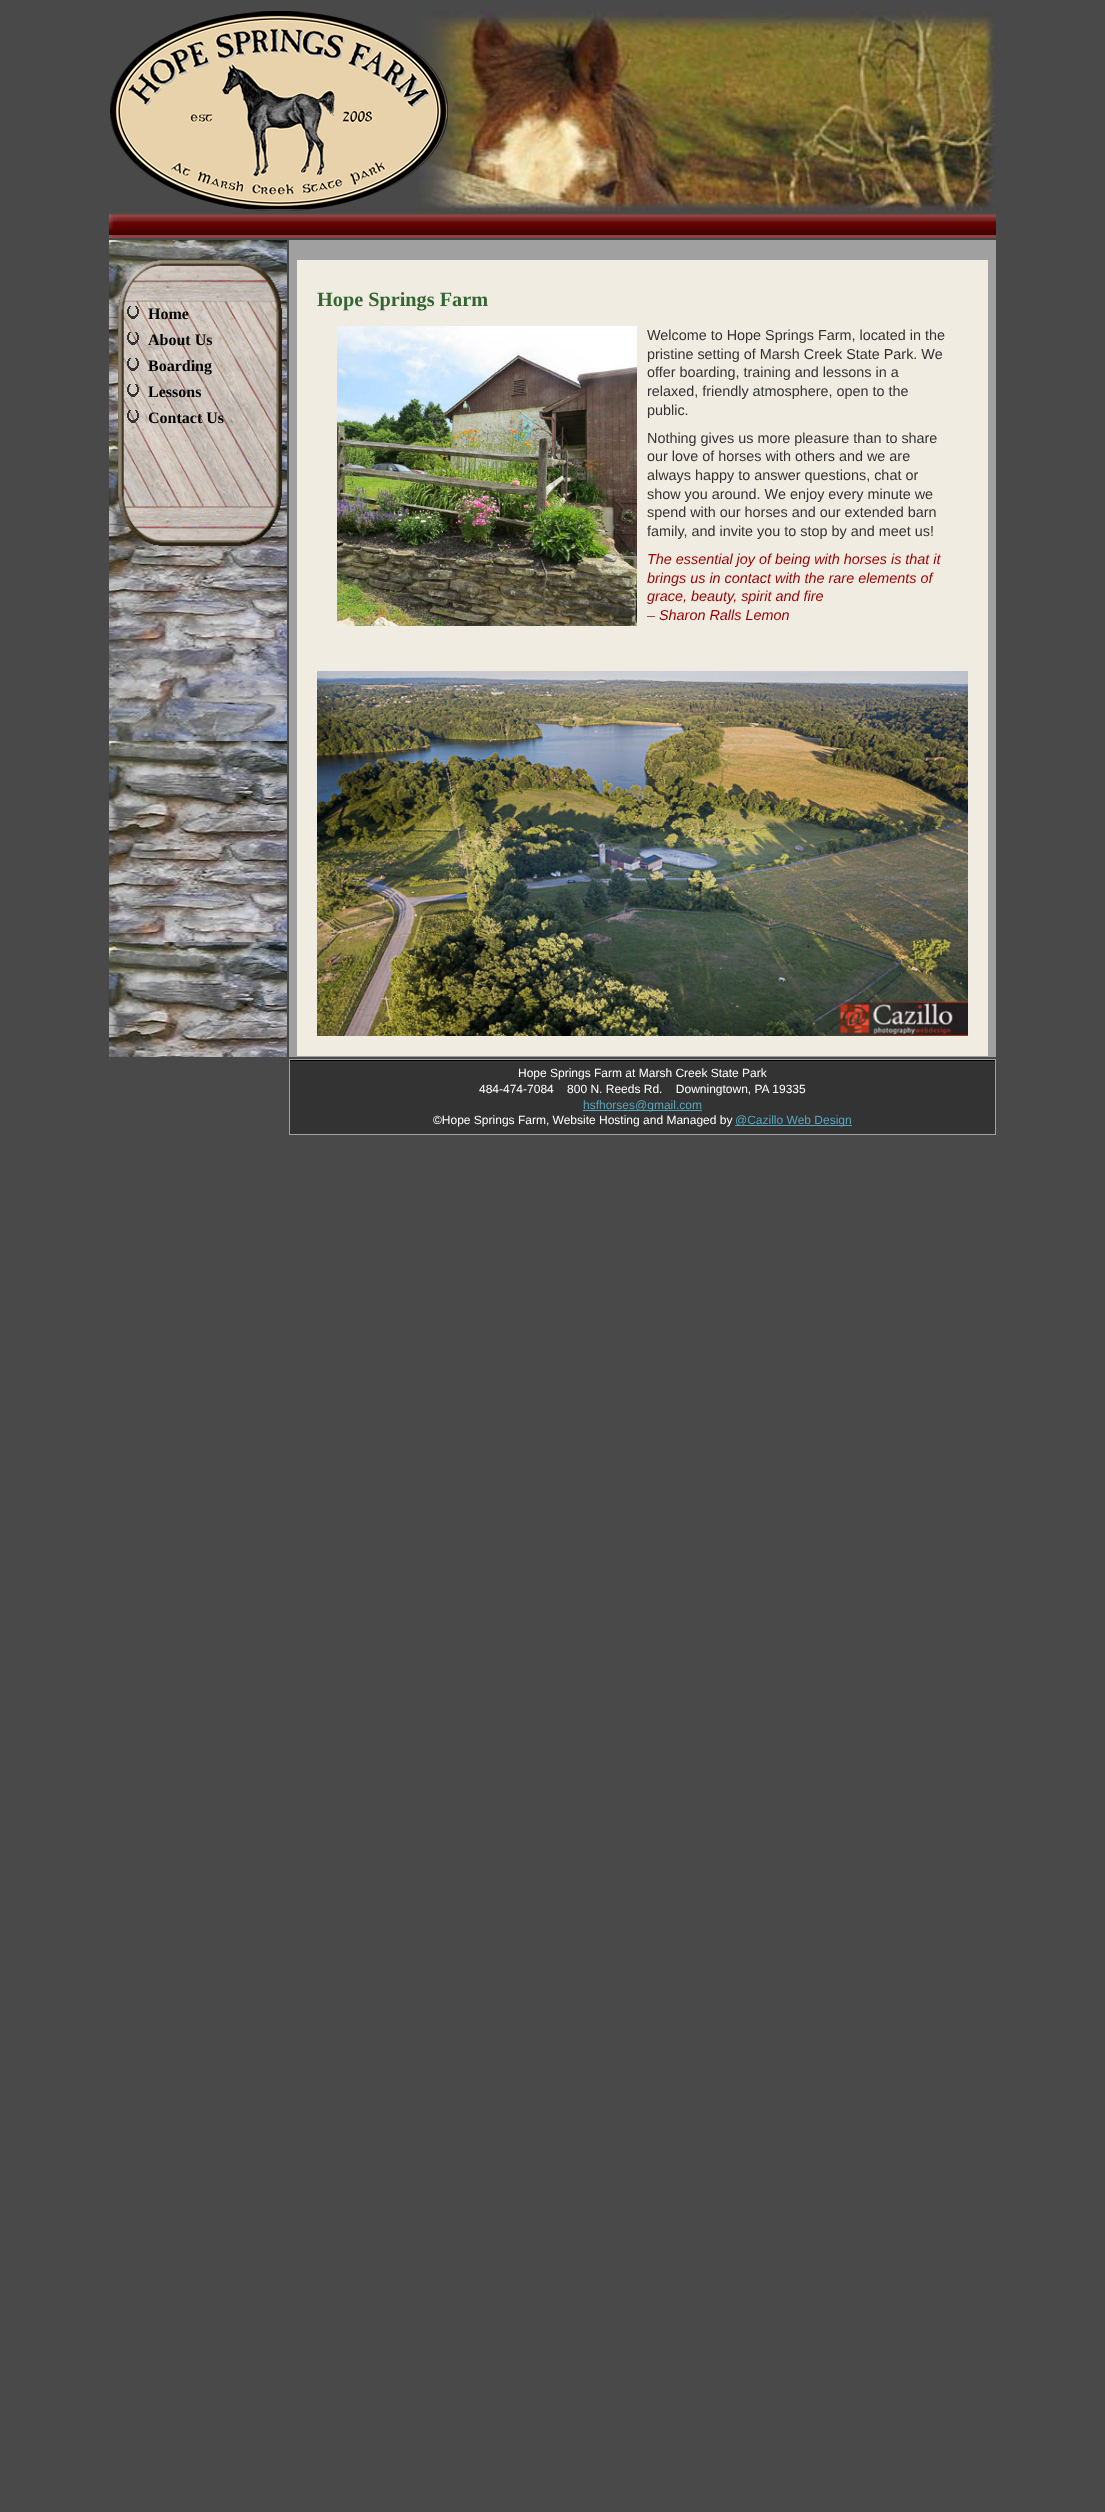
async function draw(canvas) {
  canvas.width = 1105;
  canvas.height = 2512;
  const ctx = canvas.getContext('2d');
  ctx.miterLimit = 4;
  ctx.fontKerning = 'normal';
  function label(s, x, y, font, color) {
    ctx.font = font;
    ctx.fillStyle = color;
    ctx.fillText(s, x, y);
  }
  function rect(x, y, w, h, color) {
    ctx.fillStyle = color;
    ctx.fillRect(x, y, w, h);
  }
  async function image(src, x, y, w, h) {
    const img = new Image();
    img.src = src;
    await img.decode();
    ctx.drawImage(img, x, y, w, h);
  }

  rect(0, 0, 1105, 2512, '#494949');
  await image('assets/img2.png', 419, 11, 576, 200);
  await image('assets/img1.png', 110, 11, 338, 200);
  await image('assets/img3.png', 109, 214, 887, 24);
  await image('assets/img4.png', 109, 240, 178, 817);
  await image('assets/img5.png', 118, 260, 164, 286);
  await image('assets/img6.png', 127, 306, 12, 13);
  label('Home', 148, 319, 'bold 16px Liberation Serif', '#000');
  await image('assets/img7.png', 127, 332, 12, 13);
  label('About Us', 148, 345, 'bold 16px Liberation Serif', '#000');
  await image('assets/img8.png', 127, 358, 12, 13);
  label('Boarding', 148, 371, 'bold 16px Liberation Serif', '#000');
  await image('assets/img9.png', 127, 384, 12, 13);
  label('Lessons', 148, 397, 'bold 16px Liberation Serif', '#000');
  await image('assets/img10.png', 127, 410, 12, 13);
  label('Contact Us', 148, 423, 'bold 16px Liberation Serif', '#000');
  rect(289, 240, 707, 817, '#a0a0a0');
  rect(297, 260, 691, 796, '#f1ece2');
  label('Hope Springs Farm', 317, 306, 'bold 20.25px Liberation Serif', '#363');
  await image('assets/img11.png', 337, 326, 300, 300);
  label('Welcome to Hope Springs Farm, located in the', 647, 340, '14.4px Liberation Sans', '#333');
  label('pristine setting of Marsh Creek State Park. We', 647, 359, '14.4px Liberation Sans', '#333');
  label('offer boarding, training and lessons in a', 647, 377, '14.4px Liberation Sans', '#333');
  label('relaxed, friendly atmosphere, open to the', 647, 396, '14.4px Liberation Sans', '#333');
  label('public.', 647, 415, '14.4px Liberation Sans', '#333');
  label('Nothing gives us more pleasure than to share', 647, 443, '14.4px Liberation Sans', '#333');
  label('our love of horses with others and we are', 647, 461, '14.4px Liberation Sans', '#333');
  label('always happy to answer questions, chat or', 647, 480, '14.4px Liberation Sans', '#333');
  label('show you around. We enjoy every minute we', 647, 499, '14.4px Liberation Sans', '#333');
  label('spend with our horses and our extended barn', 647, 517, '14.4px Liberation Sans', '#333');
  label('family, and invite you to stop by and meet us!', 647, 536, '14.4px Liberation Sans', '#333');
  label('The essential joy of being with horses is that it', 647, 564, 'italic 14.4px Liberation Sans', '#900');
  label('brings us in contact with the rare elements of', 647, 583, 'italic 14.4px Liberation Sans', '#900');
  label('grace, beauty, spirit and fire', 647, 601, 'italic 14.4px Liberation Sans', '#900');
  label('– Sharon Ralls Lemon', 647, 620, 'italic 14.4px Liberation Sans', '#900');
  await image('assets/img12.png', 317, 671, 651, 365);
  rect(289, 1059, 707, 76, '#a0a0a0');
  rect(290, 1061, 705, 73, '#333');
  rect(290, 1060, 705, 1, '#000');
  label('Hope Springs Farm at Marsh Creek State Park', 518, 1077, '12px Liberation Sans', '#fff');
  label('484-474-7084    800 N. Reeds Rd.    Downingtown, PA 19335', 479, 1093, '12px Liberation Sans', '#fff');
  rect(583, 1110, 119, 1, '#58a6bd');
  label('hsfhorses@gmail.com', 583, 1109, '12px Liberation Sans', '#58a6bd');
  label('©Hope Springs Farm, Website Hosting and Managed by', 433, 1124, '12px Liberation Sans', '#fff');
  rect(735, 1125, 117, 1, '#58a6bd');
  label('@Cazillo Web Design', 735, 1124, '12px Liberation Sans', '#58a6bd');
}

draw(document.querySelector('canvas'));
